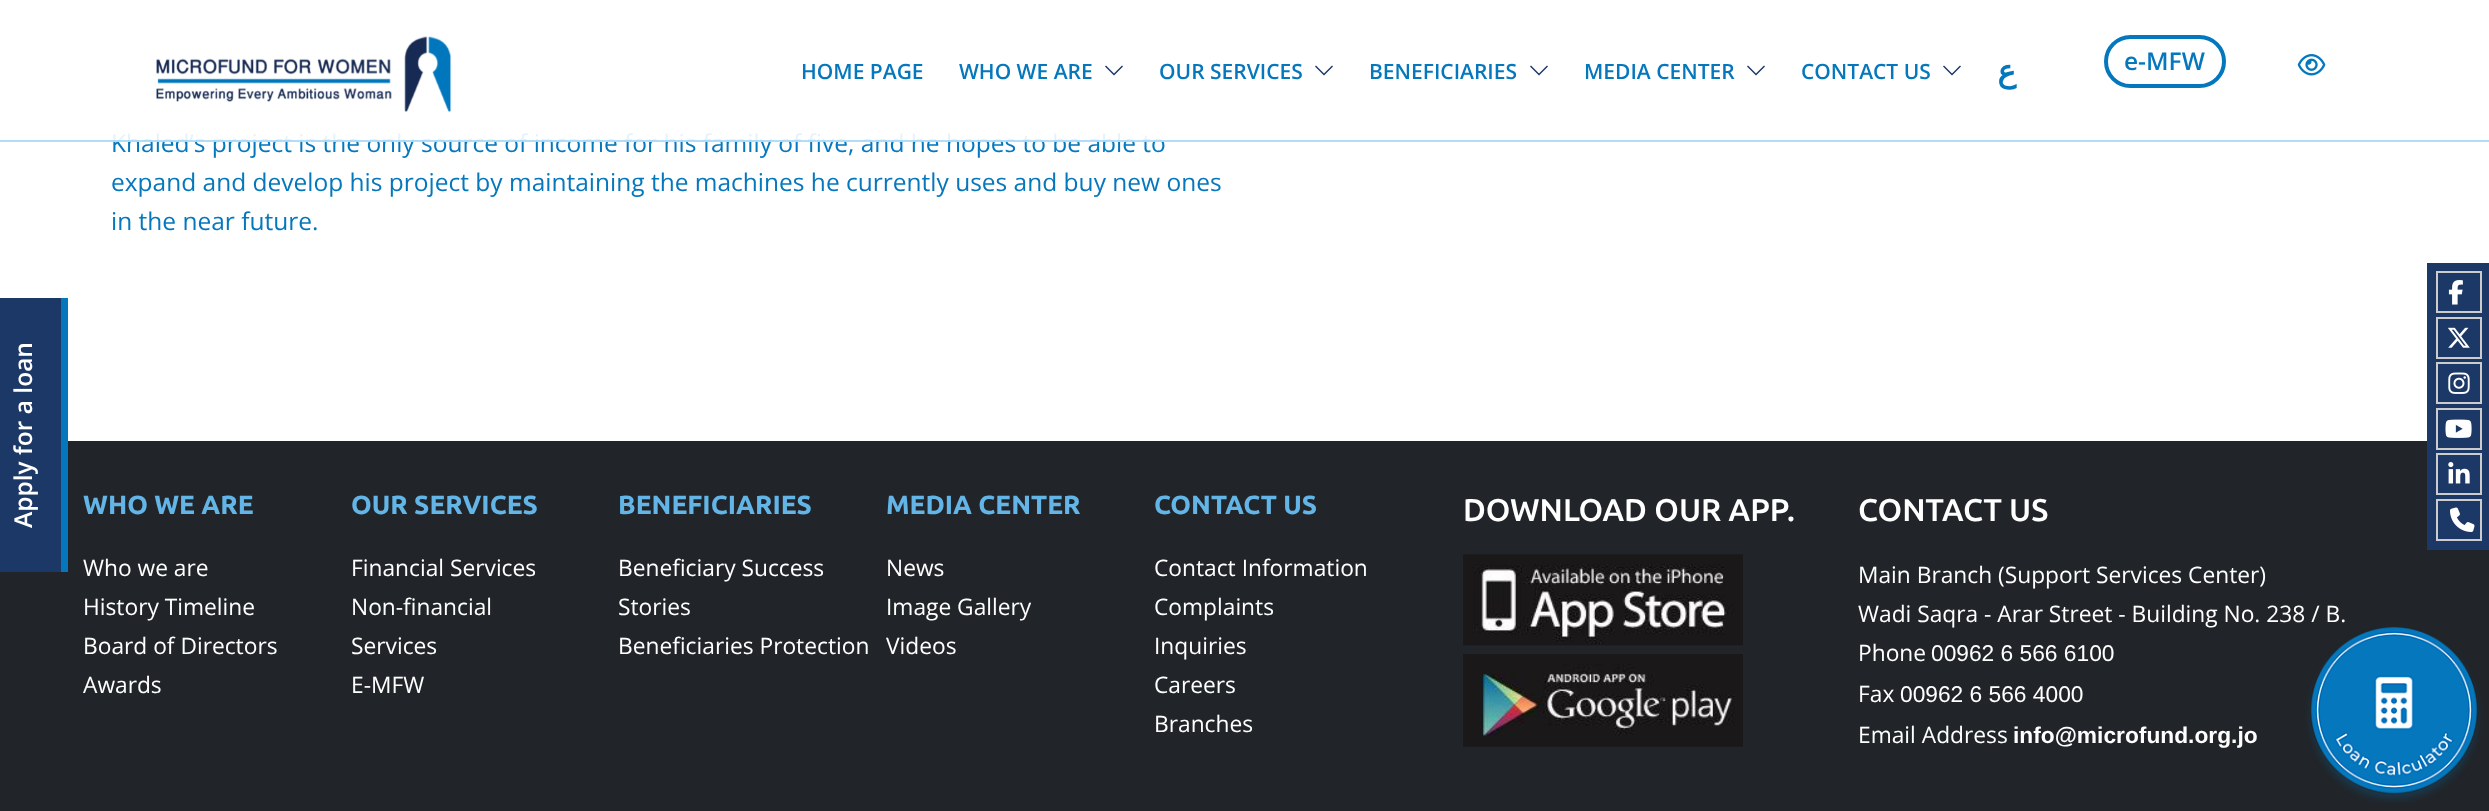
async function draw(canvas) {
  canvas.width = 2489;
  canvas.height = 811;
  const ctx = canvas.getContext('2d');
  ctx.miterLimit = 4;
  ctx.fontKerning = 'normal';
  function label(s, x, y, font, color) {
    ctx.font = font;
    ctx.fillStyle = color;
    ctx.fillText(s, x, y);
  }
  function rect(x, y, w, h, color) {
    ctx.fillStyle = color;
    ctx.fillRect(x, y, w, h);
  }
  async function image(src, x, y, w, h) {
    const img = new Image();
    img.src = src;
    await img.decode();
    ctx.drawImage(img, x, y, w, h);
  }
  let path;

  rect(0, 0, 2489, 811, '#fff');
  label('Khaled’s project is the only source of income for his family of five, and he hopes to be able to', 111, 152, '24.5px Open Sans', '#0477bd');
  rect(113, 133, 1051, 9, '#ffffffe6');
  rect(0, 140, 2489, 2, '#66bbef80');
  await image('assets/img1.png', 156, 36, 296, 76);
  label('HOME PAGE', 801, 79, '600 21px Open Sans', '#0477bd');
  label('WHO WE ARE', 959, 79, '600 21px Open Sans', '#0477bd');
  ctx.fillStyle = '#1c3867';
  path = new Path2D('M1123 66.5L1114 75.5L1105 66.5L1106 65.5L1114 73.5L1122 65.5Z');
  ctx.fill(path);
  label('OUR SERVICES', 1159, 79, '600 21px Open Sans', '#0477bd');
  ctx.fillStyle = '#1c3867';
  path = new Path2D('M1333 66.5L1324 75.5L1315 66.5L1316 65.5L1324 73.5L1332 65.5Z');
  ctx.fill(path);
  label('BENEFICIARIES', 1369, 79, '600 21px Open Sans', '#0477bd');
  ctx.fillStyle = '#1c3867';
  path = new Path2D('M1548 66.5L1539 75.5L1530 66.5L1531 65.5L1539 73.5L1547 65.5Z');
  ctx.fill(path);
  label('MEDIA CENTER', 1584, 79, '600 21px Open Sans', '#0477bd');
  ctx.fillStyle = '#1c3867';
  path = new Path2D('M1765 66.5L1756 75.5L1747 66.5L1748 65.5L1756 73.5L1764 65.5Z');
  ctx.fill(path);
  label('CONTACT US', 1801, 79, '600 21px Open Sans', '#0477bd');
  ctx.fillStyle = '#1c3867';
  path = new Path2D('M1961 66.5L1952 75.5L1943 66.5L1944 65.5L1952 73.5L1960 65.5Z');
  ctx.fill(path);
  ctx.direction = 'rtl';
  label('ع', 2016, 82, 'bold 31.5px DejaVu Sans', '#0477bd');
  ctx.beginPath();
  ctx.roundRect(2106, 37, 118, 49, 24.5);
  ctx.strokeStyle = '#0477bd';
  ctx.lineWidth = 4;
  ctx.stroke();
  ctx.direction = 'ltr';
  label('e-MFW', 2124, 70, '600 24.5px Open Sans', '#0477bd');
  await image('assets/img2.png', 2297, 54, 29, 22);
  rect(0, 441, 2489, 370, '#212529');
  rect(0, 298, 61, 274, '#1c3867');
  rect(61, 298, 7, 274, '#0477bd');
  ctx.fillStyle = '#fff';
  ctx.save();
  ctx.translate(32, 528);
  ctx.rotate(-90 * Math.PI / 180);
  ctx.fillText('Apply for a loan', 0, 0);
  ctx.restore();
  rect(2427, 263, 62, 287, '#1c3867');
  ctx.strokeStyle = '#ccc';
  ctx.lineWidth = 2;
  ctx.strokeRect(2437, 272, 44, 40);
  await image('assets/img3.png', 2448, 280, 15, 25);
  ctx.strokeRect(2437, 318, 44, 40);
  await image('assets/img4.png', 2447, 327, 23, 21);
  ctx.strokeRect(2437, 363, 44, 40);
  await image('assets/img5.png', 2448, 372, 22, 22);
  ctx.strokeRect(2437, 409, 44, 40);
  await image('assets/img6.png', 2445, 419, 27, 19);
  ctx.strokeRect(2437, 454, 44, 40);
  await image('assets/img7.png', 2448, 462, 22, 22);
  ctx.strokeRect(2437, 500, 44, 40);
  await image('assets/img8.png', 2450, 507, 25, 25);
  label('expand and develop his project by maintaining the machines he currently uses and buy new ones', 111, 191, '24.5px Open Sans', '#0477bd');
  label('in the near future.', 111, 230, '24.5px Open Sans', '#0477bd');
  label('WHO WE ARE', 83, 514, 'bold 26.25px Ubuntu', '#62b5e6');
  label('Who we are', 83, 576, '22.75px Open Sans', '#fff');
  label('History Timeline', 83, 615, '22.75px Open Sans', '#fff');
  label('Board of Directors', 83, 654, '22.75px Open Sans', '#fff');
  label('Awards', 83, 693, '22.75px Open Sans', '#fff');
  label('OUR SERVICES', 351, 514, 'bold 26.25px Ubuntu', '#62b5e6');
  label('Financial Services', 351, 576, '22.75px Open Sans', '#fff');
  label('Non-financial', 351, 615, '22.75px Open Sans', '#fff');
  label('Services', 351, 654, '22.75px Open Sans', '#fff');
  label('E-MFW', 351, 693, '22.75px Open Sans', '#fff');
  label('BENEFICIARIES', 618, 514, 'bold 26.25px Ubuntu', '#62b5e6');
  label('Beneficiary Success', 618, 576, '22.75px Open Sans', '#fff');
  label('Stories', 618, 615, '22.75px Open Sans', '#fff');
  label('Beneficiaries Protection', 618, 654, '22.75px Open Sans', '#fff');
  label('MEDIA CENTER', 886, 514, 'bold 26.25px Ubuntu', '#62b5e6');
  label('News', 886, 576, '22.75px Open Sans', '#fff');
  label('Image Gallery', 886, 615, '22.75px Open Sans', '#fff');
  label('Videos', 886, 654, '22.75px Open Sans', '#fff');
  label('CONTACT US', 1154, 514, 'bold 26.25px Ubuntu', '#62b5e6');
  label('Contact Information', 1154, 576, '22.75px Open Sans', '#fff');
  label('Complaints', 1154, 615, '22.75px Open Sans', '#fff');
  label('Inquiries', 1154, 654, '22.75px Open Sans', '#fff');
  label('Careers', 1154, 693, '22.75px Open Sans', '#fff');
  label('Branches', 1154, 732, '22.75px Open Sans', '#fff');
  label('DOWNLOAD OUR APP.', 1463, 521, '500 31.5px Ubuntu', '#fff');
  await image('assets/img9.png', 1463, 554, 280, 92);
  await image('assets/img10.png', 1463, 654, 280, 93);
  label('CONTACT US', 1858, 521, '500 31.5px Ubuntu', '#fff');
  label('Main Branch (Support Services Center)', 1858, 583, '22.75px Open Sans', '#fff');
  label('Wadi Saqra - Arar Street - Building No. 238 / B.', 1858, 622, '22.75px Open Sans', '#fff');
  label('Phone', 1858, 661, '22.75px Open Sans', '#fff');
  label('00962 6 566 6100', 1931, 661, '22.75px Liberation Sans', '#fff');
  label('Fax', 1858, 702, '22.75px Open Sans', '#fff');
  label('00962 6 566 4000', 1900, 702, '22.75px Liberation Sans', '#fff');
  label('Email Address', 1858, 743, '22.75px Open Sans', '#fff');
  label('info@microfund.org.jo', 2013, 743, 'bold 22.75px Liberation Sans', '#fff');
  await image('assets/img11.png', 2306, 627, 176, 176);
}

draw(document.querySelector('canvas'));
